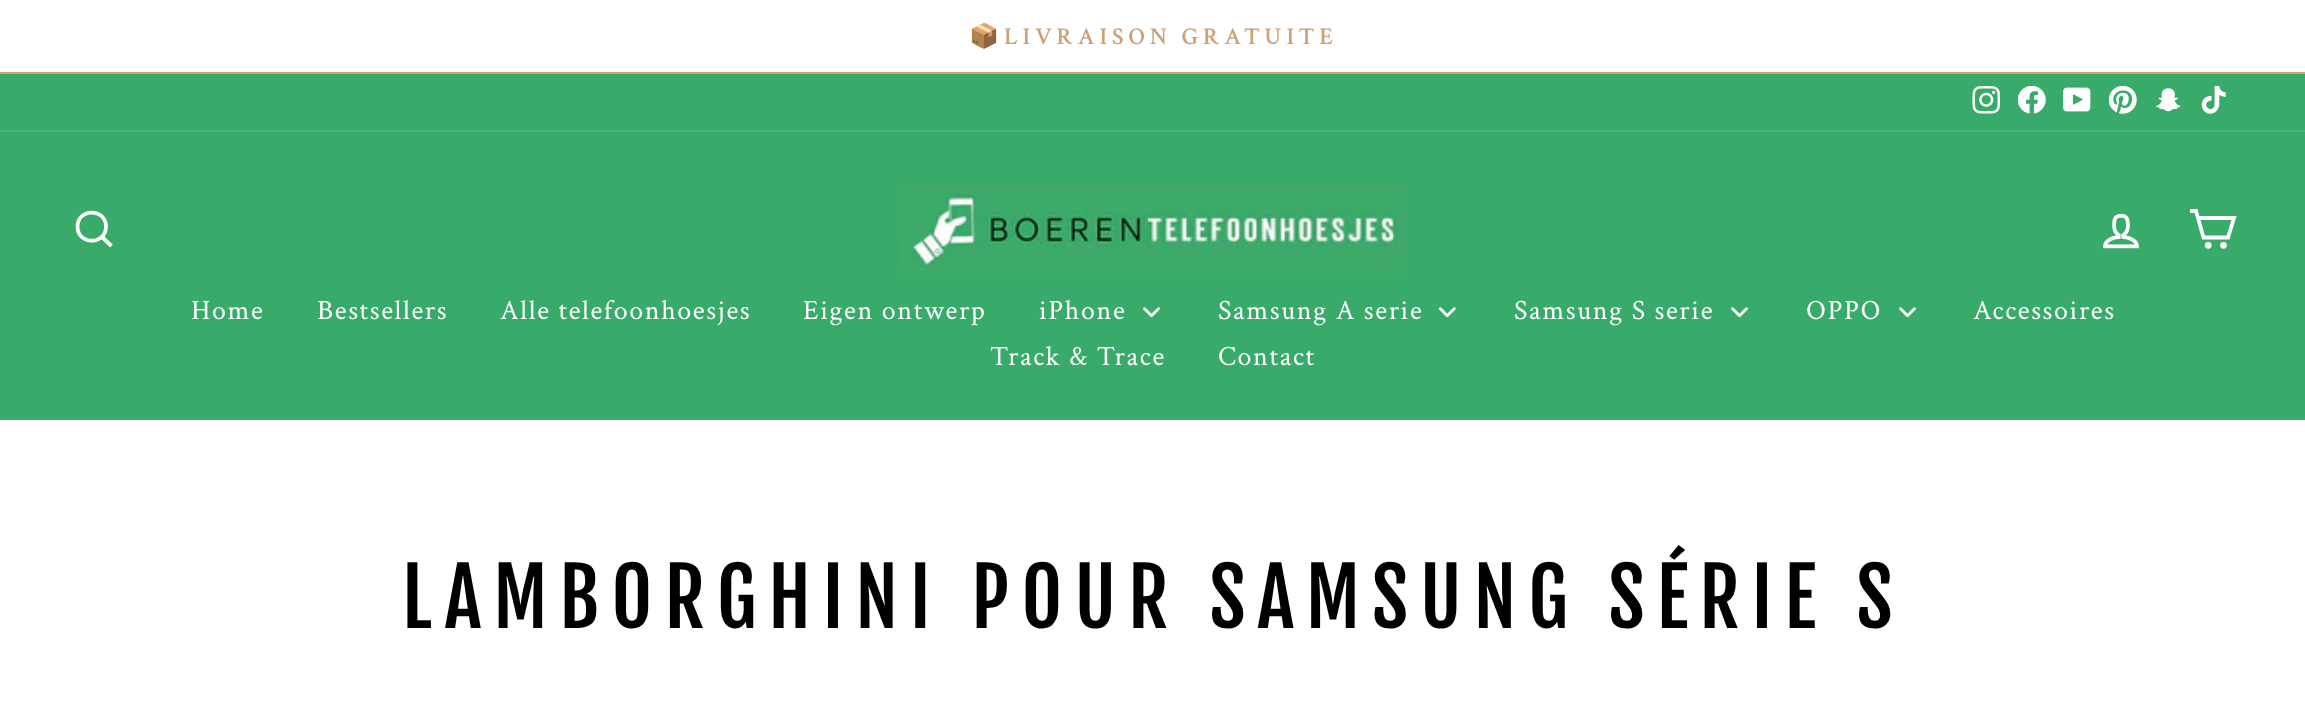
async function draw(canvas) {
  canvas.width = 2305;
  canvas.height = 721;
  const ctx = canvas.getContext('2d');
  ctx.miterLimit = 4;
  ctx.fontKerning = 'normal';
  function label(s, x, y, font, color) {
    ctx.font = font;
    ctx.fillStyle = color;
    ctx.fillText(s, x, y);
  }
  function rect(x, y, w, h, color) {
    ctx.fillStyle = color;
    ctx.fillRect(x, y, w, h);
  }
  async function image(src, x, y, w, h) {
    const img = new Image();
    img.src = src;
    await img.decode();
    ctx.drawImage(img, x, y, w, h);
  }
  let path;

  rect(0, 0, 2305, 721, '#fff');
  rect(0, 72, 2305, 2, '#cca178');
  ctx.letterSpacing = '4.8px';
  label('📦', 969, 44, 'bold 24.1px Noto Color Emoji', '#cca178');
  label('LIVRAISON GRATUITE', 1004, 44, '600 24.1px Crimson Text', '#cca178');
  rect(0, 74, 2305, 56, '#38aa69');
  await image('assets/img1.png', 1972, 86, 28, 28);
  await image('assets/img2.png', 2018, 86, 28, 28);
  await image('assets/img3.png', 2063, 87, 28, 25);
  await image('assets/img4.png', 2109, 86, 28, 28);
  await image('assets/img5.png', 2156, 88, 25, 24);
  await image('assets/img6.png', 2201, 86, 25, 28);
  rect(0, 132, 2305, 288, '#38aa69');
  rect(0, 130, 2305, 2, '#4cb378');
  path = new Path2D('M106 226.5C106 245.5 77.5 245.5 77.5 226.5C77.5 208 106 208 106 226.5ZM111.5 246L102 237');
  ctx.strokeStyle = '#fff';
  ctx.lineWidth = 3.8;
  ctx.stroke(path);
  await image('assets/img7.png', 900, 184, 507, 90);
  await image('assets/img8.png', 2103, 213, 36, 36);
  path = new Path2D('M2198 218H2234L2228 237.5H2203.5L2196 211H2190');
  ctx.stroke(path);
  ctx.fillStyle = '#fff';
  ctx.beginPath();
  ctx.arc(2208.2, 245.3, 1.5, 0, 2 * Math.PI);
  ctx.fill();
  ctx.stroke();
  ctx.beginPath();
  ctx.arc(2223.5, 245.3, 1.5, 0, 2 * Math.PI);
  ctx.fill();
  ctx.stroke();
  ctx.letterSpacing = '1.6px';
  label('Home', 191, 319, '28px Crimson Text', '#fff');
  label('Bestsellers', 317, 319, '28px Crimson Text', '#fff');
  label('Alle telefoonhoesjes', 500, 319, '28px Crimson Text', '#fff');
  label('Eigen ontwerp', 803, 319, '28px Crimson Text', '#fff');
  label('iPhone', 1039, 319, '28px Crimson Text', '#fff');
  await image('assets/img9.png', 1143, 307, 17, 11);
  label('Samsung A serie', 1218, 319, '28px Crimson Text', '#fff');
  await image('assets/img10.png', 1438, 307, 18, 11);
  label('Samsung S serie', 1514, 319, '28px Crimson Text', '#fff');
  await image('assets/img9.png', 1731, 307, 17, 11);
  label('OPPO', 1806, 319, '28px Crimson Text', '#fff');
  await image('assets/img9.png', 1899, 307, 17, 11);
  label('Accessoires', 1973, 319, '28px Crimson Text', '#fff');
  label('Track & Trace', 990, 365, '28px Crimson Text', '#fff');
  label('Contact', 1218, 365, '28px Crimson Text', '#fff');
  ctx.letterSpacing = '11.8px';
  label('LAMBORGHINI POUR SAMSUNG SÉRIE S', 402, 628, '78.75px Fjalla One', '#000');
}

draw(document.querySelector('canvas'));
